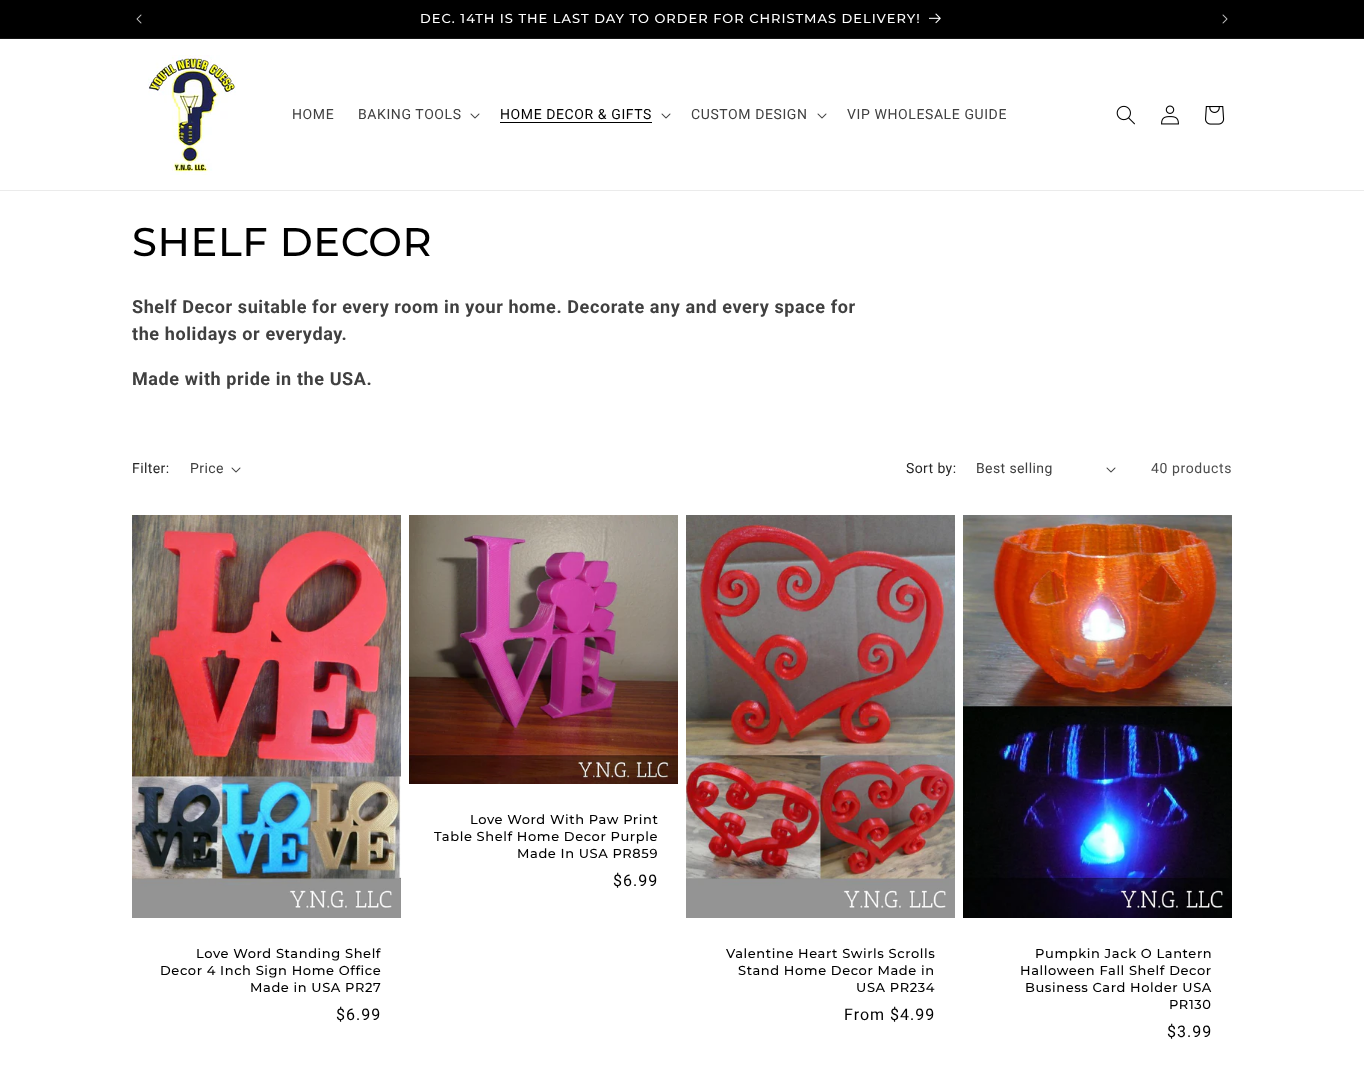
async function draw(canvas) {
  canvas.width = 1364;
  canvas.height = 1083;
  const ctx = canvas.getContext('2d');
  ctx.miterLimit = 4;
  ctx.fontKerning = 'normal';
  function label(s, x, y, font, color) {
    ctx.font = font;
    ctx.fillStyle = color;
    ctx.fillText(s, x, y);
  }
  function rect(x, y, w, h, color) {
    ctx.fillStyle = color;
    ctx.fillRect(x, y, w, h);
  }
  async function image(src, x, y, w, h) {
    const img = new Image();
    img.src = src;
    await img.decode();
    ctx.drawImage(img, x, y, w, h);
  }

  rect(0, 0, 1364, 1083, '#fff');
  rect(0, 0, 1364, 38, '#000');
  rect(0, 38, 1364, 1, '#141414');
  await image('assets/img1.png', 136, 14, 6, 10);
  ctx.letterSpacing = '1px';
  label('DEC. 14TH IS THE LAST DAY TO ORDER FOR CHRISTMAS DELIVERY!', 420, 23, '500 13px Montserrat', '#fff');
  await image('assets/img2.png', 929, 13, 12, 11);
  await image('assets/img3.png', 1222, 14, 6, 10);
  rect(0, 190, 1364, 1, '#ebebeb');
  await image('assets/img4.png', 148, 55, 88, 120);
  ctx.letterSpacing = '0.6px';
  label('HOME', 292, 119, '14px Roboto', '#404040');
  label('BAKING TOOLS', 358, 119, '14px Roboto', '#404040');
  await image('assets/img5.png', 470, 113, 10, 6);
  label('HOME DECOR & GIFTS', 500, 119, '14px Roboto', '#000');
  rect(500, 122, 152, 1, '#000');
  await image('assets/img5.png', 661, 113, 10, 6);
  label('CUSTOM DESIGN', 691, 119, '14px Roboto', '#404040');
  await image('assets/img5.png', 817, 113, 10, 6);
  label('VIP WHOLESALE GUIDE', 847, 119, '14px Roboto', '#404040');
  await image('assets/img6.png', 1116, 105, 19, 20);
  await image('assets/img7.png', 1161, 105, 18, 20);
  await image('assets/img8.png', 1205, 106, 20, 19);
  label('SHELF DECOR', 132, 256, '500 40px Montserrat', '#000');
  label('Shelf Decor suitable for every room in your home. Decorate any and every space for', 132, 313, 'bold 18px Roboto', '#404040');
  label('the holidays or everyday.', 132, 340, 'bold 18px Roboto', '#404040');
  label('Made with pride in the USA.', 132, 385, 'bold 18px Roboto', '#404040');
  ctx.letterSpacing = '0.4px';
  label('Filter:', 132, 473, '14px Roboto', '#262626');
  label('Price', 190, 473, '14px Roboto', '#404040');
  await image('assets/img5.png', 231, 467, 10, 6);
  label('Sort by:', 906, 473, '14px Roboto', '#262626');
  label('Best selling', 976, 473, '14px Roboto', '#404040');
  await image('assets/img5.png', 1106, 467, 10, 6);
  ctx.letterSpacing = '0.6px';
  label('40 products', 1151, 473, '14px Roboto', '#4d4d4d');
  await image('assets/img9.png', 409, 515, 269, 269);
  label('Love Word With Paw Print', 470, 824, '500 13px Montserrat', '#000');
  label('Table Shelf Home Decor Purple', 434, 841, '500 13px Montserrat', '#000');
  label('Made In USA PR859', 517, 858, '500 13px Montserrat', '#000');
  ctx.letterSpacing = '1px';
  label('$6.99', 613, 886, '16px Roboto', '#000');
  await image('assets/img10.png', 132, 515, 269, 403);
  ctx.letterSpacing = '0.6px';
  label('Love Word Standing Shelf', 196, 958, '500 13px Montserrat', '#000');
  label('Decor 4 Inch Sign Home Office', 160, 975, '500 13px Montserrat', '#000');
  label('Made in USA PR27', 250, 992, '500 13px Montserrat', '#000');
  ctx.letterSpacing = '1px';
  label('$6.99', 336, 1020, '16px Roboto', '#000');
  await image('assets/img11.png', 686, 515, 269, 403);
  ctx.letterSpacing = '0.6px';
  label('Valentine Heart Swirls Scrolls', 726, 958, '500 13px Montserrat', '#000');
  label('Stand Home Decor Made in', 738, 975, '500 13px Montserrat', '#000');
  label('USA PR234', 856, 992, '500 13px Montserrat', '#000');
  ctx.letterSpacing = '1px';
  label('From $4.99', 844, 1020, '16px Roboto', '#000');
  await image('assets/img12.png', 963, 515, 269, 403);
  ctx.letterSpacing = '0.6px';
  label('Pumpkin Jack O Lantern', 1035, 958, '500 13px Montserrat', '#000');
  label('Halloween Fall Shelf Decor', 1020, 975, '500 13px Montserrat', '#000');
  label('Business Card Holder USA', 1025, 992, '500 13px Montserrat', '#000');
  label('PR130', 1169, 1009, '500 13px Montserrat', '#000');
  ctx.letterSpacing = '1px';
  label('$3.99', 1167, 1037, '16px Roboto', '#000');
}

draw(document.querySelector('canvas'));
